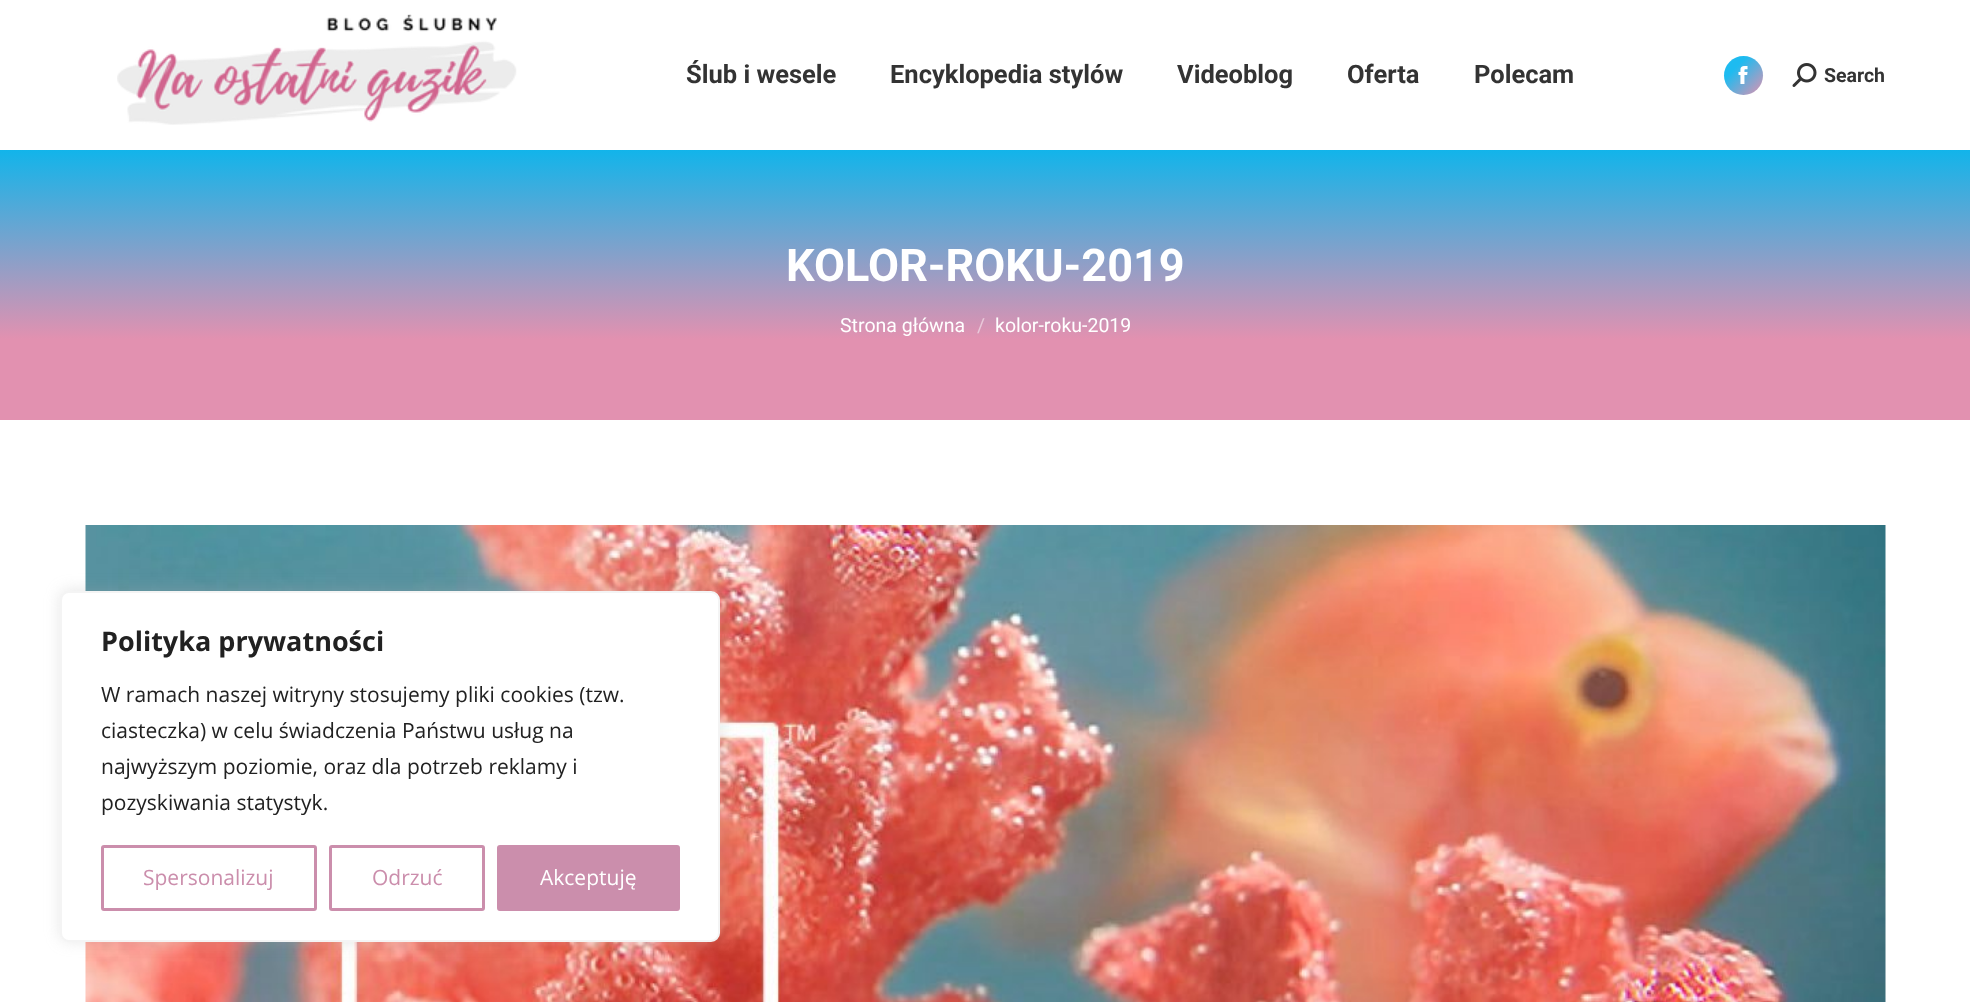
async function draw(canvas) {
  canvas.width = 1970;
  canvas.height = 1002;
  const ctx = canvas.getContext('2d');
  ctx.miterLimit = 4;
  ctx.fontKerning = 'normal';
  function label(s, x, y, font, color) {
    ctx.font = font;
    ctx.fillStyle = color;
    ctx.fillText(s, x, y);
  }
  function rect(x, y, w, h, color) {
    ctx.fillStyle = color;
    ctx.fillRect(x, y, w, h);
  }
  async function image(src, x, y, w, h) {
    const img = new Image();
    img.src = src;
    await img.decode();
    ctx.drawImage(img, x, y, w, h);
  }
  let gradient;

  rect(0, 0, 1970, 1002, '#fff');
  await image('assets/img1.png', 117, 14, 400, 111);
  label('Ślub i wesele', 686, 83, 'bold 25.5px Roboto', '#333');
  label('Encyklopedia stylów', 890, 83, 'bold 25.5px Roboto', '#333');
  label('Videoblog', 1177, 83, 'bold 25.5px Roboto', '#333');
  label('Oferta', 1347, 83, 'bold 25.5px Roboto', '#333');
  label('Polecam', 1474, 83, 'bold 25.5px Roboto', '#333');
  gradient = ctx.createLinearGradient(1724, 56, 1763, 95);
  gradient.addColorStop(0.3, '#1ebbf0');
  gradient.addColorStop(1, '#e291b0');
  ctx.fillStyle = gradient;
  ctx.beginPath();
  ctx.arc(1743.5, 75.5, 19.5, 0, 2 * Math.PI);
  ctx.fill();
  await image('assets/img2.png', 1738, 66, 10, 18);
  await image('assets/img3.png', 1792, 63, 25, 24);
  label('Search', 1824, 82, 'bold 19.5px Roboto', '#333');
  gradient = ctx.createLinearGradient(986, 420, 986, 150);
  gradient.addColorStop(0.3, '#e291b0');
  gradient.addColorStop(1, '#12b4ea');
  ctx.fillStyle = gradient;
  ctx.fillRect(0, 150, 1970, 270);
  label('KOLOR-ROKU-2019', 786, 281, 'bold 45px Roboto', '#fff');
  label('Strona główna', 840, 332, '19.5px Roboto', '#fff');
  label('/', 977, 332, '19.5px Roboto', '#e9c9da');
  label('kolor-roku-2019', 995, 332, '19.5px Roboto', '#fff');
  await image('assets/img4.png', 85, 525, 1801, 477);
  ctx.fillStyle = '#acabab4d';
  ctx.filter = 'blur(7.5px)';
  ctx.beginPath();
  ctx.roundRect(60, 590, 660, 351, 9);
  ctx.fill();
  ctx.filter = 'none';
  ctx.fillStyle = '#fff';
  ctx.beginPath();
  ctx.roundRect(61, 592, 658, 349, 8);
  ctx.fill();
  ctx.strokeStyle = '#f4f4f4';
  ctx.lineWidth = 2;
  ctx.stroke();
  label('Polityka prywatności', 101, 651, 'bold 27px Open Sans', '#212121');
  label('W ramach naszej witryny stosujemy pliki cookies (tzw.', 101, 702, '21px Open Sans', '#212121');
  label('ciasteczka) w celu świadczenia Państwu usług na', 101, 738, '21px Open Sans', '#212121');
  label('najwyższym poziomie, oraz dla potrzeb reklamy i', 101, 774, '21px Open Sans', '#212121');
  label('pozyskiwania statystyk.', 101, 810, '21px Open Sans', '#212121');
  ctx.beginPath();
  ctx.roundRect(102.5, 846.5, 213, 63, 1.5);
  ctx.strokeStyle = '#cb8eac';
  ctx.lineWidth = 3;
  ctx.stroke();
  label('Spersonalizuj', 143, 885, '21px Open Sans', '#cb8eac');
  ctx.beginPath();
  ctx.roundRect(330.5, 846.5, 153, 63, 1.5);
  ctx.stroke();
  label('Odrzuć', 372, 885, '21px Open Sans', '#cb8eac');
  ctx.beginPath();
  ctx.roundRect(498.5, 846.5, 180, 63, 1.5);
  ctx.fill();
  ctx.stroke();
  label('Akceptuję', 540, 885, '21px Open Sans', '#fff');
}

draw(document.querySelector('canvas'));
